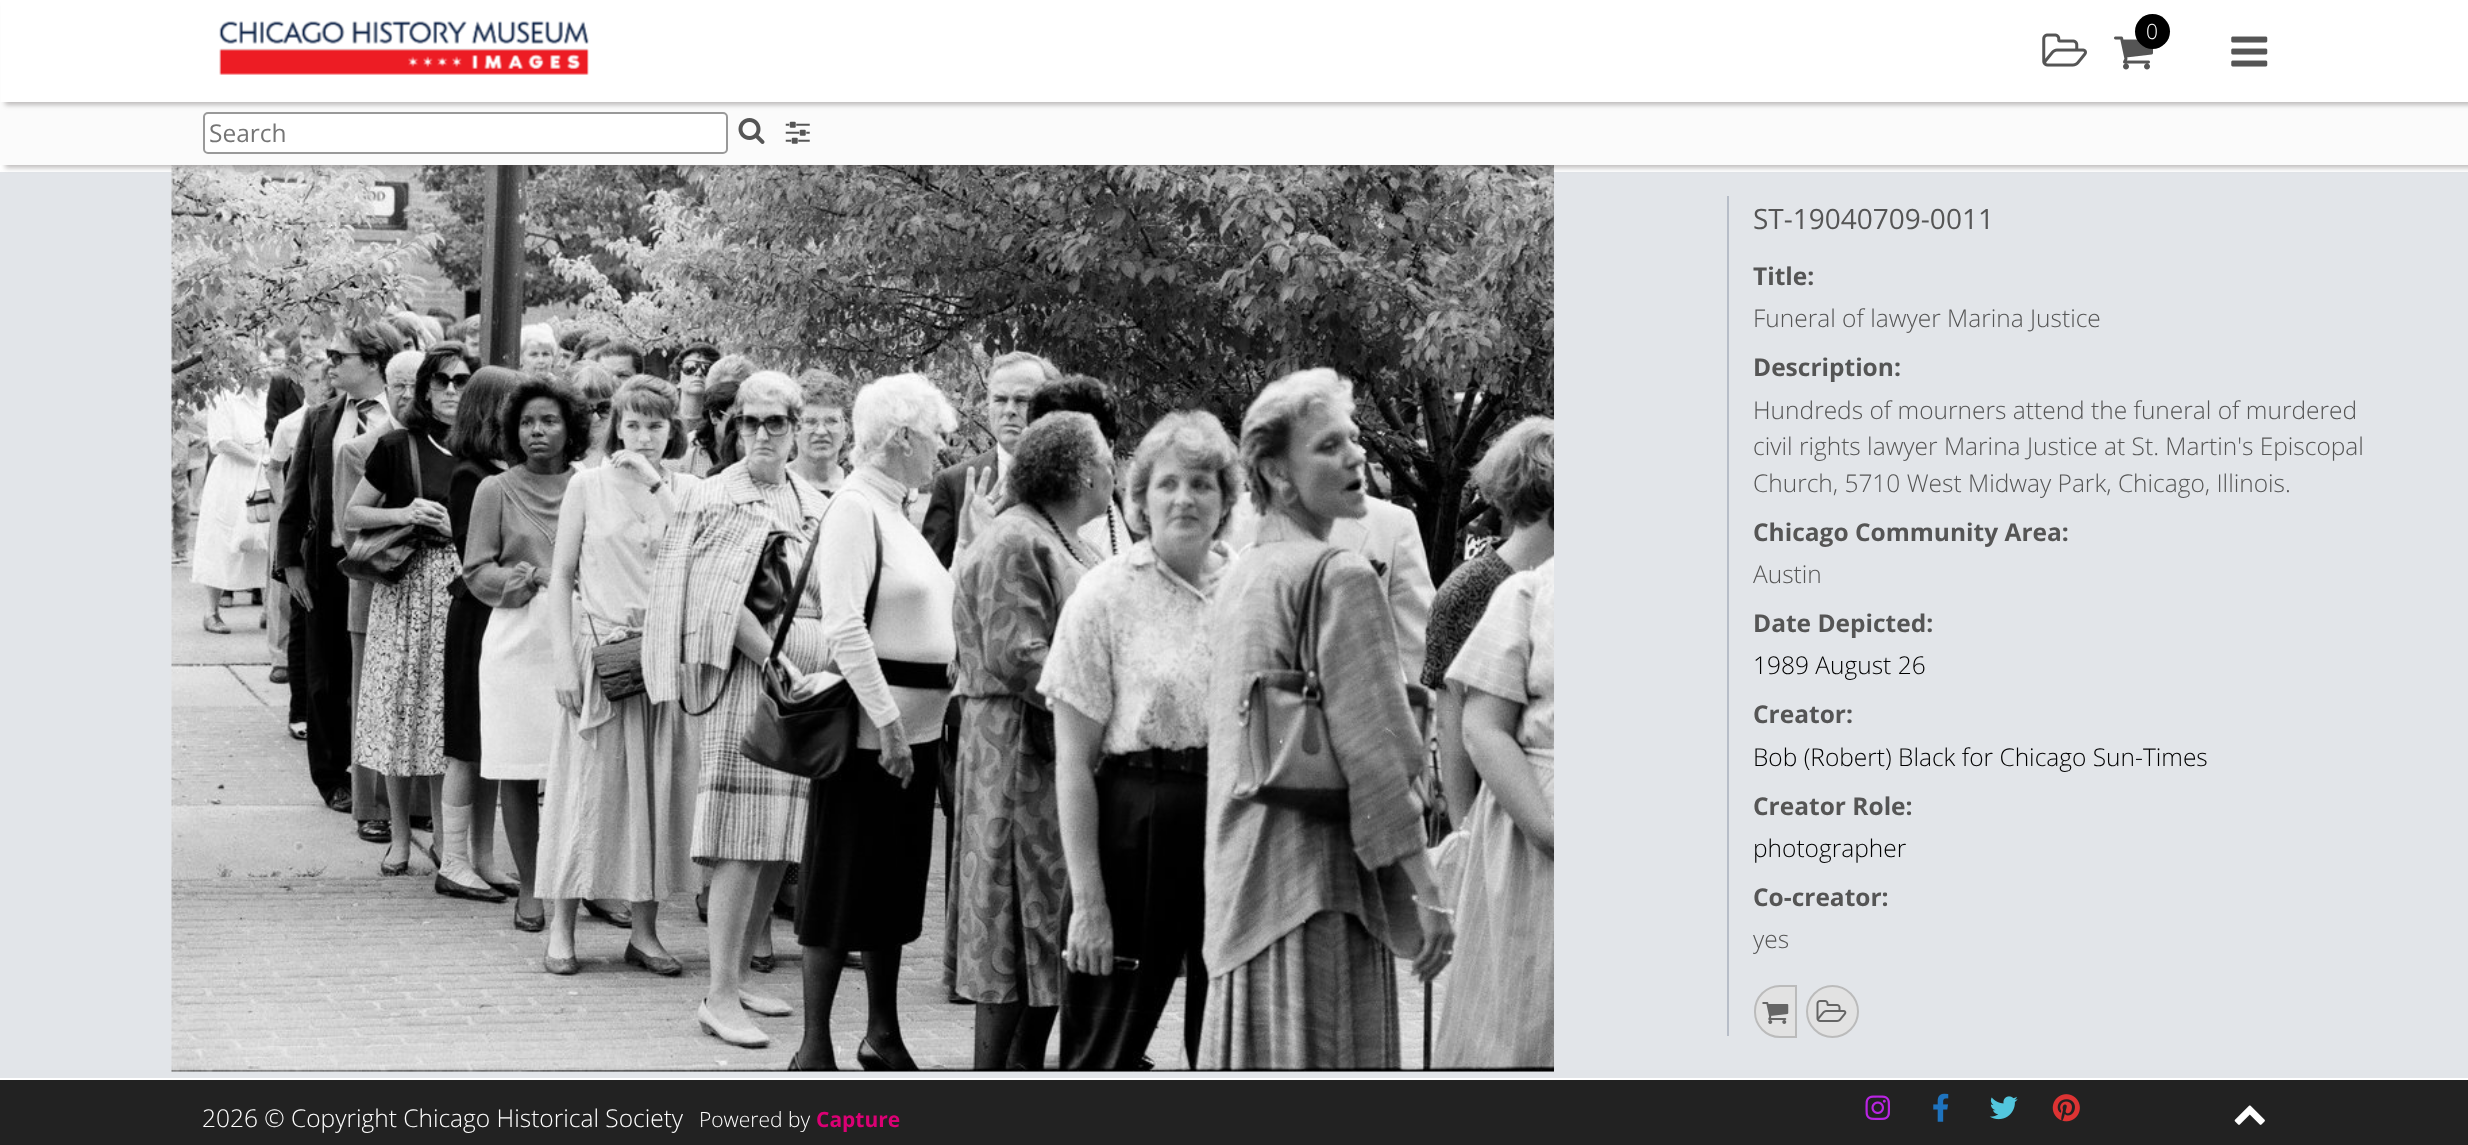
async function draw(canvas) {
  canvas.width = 2468;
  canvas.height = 1145;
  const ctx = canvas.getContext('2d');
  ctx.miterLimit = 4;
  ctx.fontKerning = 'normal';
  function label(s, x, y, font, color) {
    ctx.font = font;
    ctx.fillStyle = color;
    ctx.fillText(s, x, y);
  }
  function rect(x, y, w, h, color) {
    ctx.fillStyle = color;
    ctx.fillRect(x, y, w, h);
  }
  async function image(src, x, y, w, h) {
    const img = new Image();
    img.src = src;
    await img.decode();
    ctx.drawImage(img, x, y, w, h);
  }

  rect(0, 0, 2468, 1145, '#fff');
  rect(0, 172, 2468, 906, '#e2e5e9');
  await image('assets/img7.png', 171, 165, 1383, 907);
  ctx.fillStyle = '#4a454559';
  ctx.filter = 'blur(2.5px)';
  ctx.beginPath();
  ctx.rect(5, 105, 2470, 63);
  ctx.fill();
  ctx.filter = 'none';
  rect(0, 102, 2468, 63, '#fbfbfb');
  ctx.fillStyle = '#fff';
  ctx.beginPath();
  ctx.roundRect(204, 113, 523, 40, 4);
  ctx.fill();
  ctx.strokeStyle = '#999';
  ctx.lineWidth = 2;
  ctx.stroke();
  ctx.fillStyle = '#4a454559';
  ctx.filter = 'blur(2.5px)';
  ctx.beginPath();
  ctx.rect(5, 4, 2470, 101);
  ctx.fill();
  ctx.filter = 'none';
  rect(1, 0, 2467, 102, '#fff');
  await image('assets/img1.png', 219, 21, 370, 54);
  await image('assets/img2.png', 2042, 33, 45, 34);
  await image('assets/img3.png', 2114, 36, 39, 34);
  ctx.fillStyle = '#000';
  ctx.beginPath();
  ctx.arc(2152.5, 31.5, 17.5, 0, 2 * Math.PI);
  ctx.fill();
  label('0', 2146, 39, '300 21px Open Sans', '#fff');
  await image('assets/img4.png', 2231, 36, 37, 31);
  label('Search', 209, 142, '24.5px Open Sans', '#757575');
  await image('assets/img5.png', 738, 118, 27, 26);
  await image('assets/img6.png', 785, 121, 25, 23);
  rect(1727, 196, 2, 840, '#b7bdc8');
  label('ST-19040709-0011', 1753, 229, '28px Open Sans', '#555');
  label('Title:', 1753, 285, 'bold 24.5px Open Sans', '#555');
  label('Funeral of lawyer Marina Justice', 1753, 327, '300 24.5px Open Sans', '#555');
  label('Description:', 1753, 376, 'bold 24.5px Open Sans', '#555');
  label('Hundreds of mourners attend the funeral of murdered', 1753, 419, '300 24.5px Open Sans', '#555');
  label('civil rights lawyer Marina Justice at St. Martin\'s Episcopal', 1753, 455, '300 24.5px Open Sans', '#555');
  label('Church, 5710 West Midway Park, Chicago, Illinois.', 1753, 492, '300 24.5px Open Sans', '#555');
  label('Chicago Community Area:', 1753, 541, 'bold 24.5px Open Sans', '#555');
  label('Austin', 1753, 583, '300 24.5px Open Sans', '#555');
  label('Date Depicted:', 1753, 632, 'bold 24.5px Open Sans', '#555');
  label('1989 August 26', 1753, 674, '300 24.5px Open Sans', '#000');
  label('Creator:', 1753, 723, 'bold 24.5px Open Sans', '#555');
  label('Bob (Robert) Black for Chicago Sun-Times', 1753, 766, '300 24.5px Open Sans', '#000');
  label('Creator Role:', 1753, 815, 'bold 24.5px Open Sans', '#555');
  label('photographer', 1753, 857, '300 24.5px Open Sans', '#000');
  label('Co-creator:', 1753, 906, 'bold 24.5px Open Sans', '#555');
  label('yes', 1753, 948, '300 24.5px Open Sans', '#555');
  ctx.fillStyle = '#e2e2e2';
  ctx.beginPath();
  ctx.roundRect(1755, 986, 41, 51, [25, 0, 0, 25]);
  ctx.fill();
  ctx.strokeStyle = '#bbb';
  ctx.stroke();
  await image('assets/img8.png', 1762, 1002, 27, 22);
  ctx.beginPath();
  ctx.arc(1832.5, 1011.5, 25.5, 0, 2 * Math.PI);
  ctx.fill();
  ctx.stroke();
  await image('assets/img9.png', 1816, 1000, 31, 22);
  rect(0, 1080, 2468, 65, '#222');
  label('2026 © Copyright Chicago Historical Society', 202, 1127, '300 24.5px Open Sans', '#fff');
  label('Powered by', 699, 1127, '300 21px Open Sans', '#fff');
  label('Capture', 816, 1127, 'bold 21px Open Sans', '#db0074');
  await image('assets/img10.png', 1865, 1095, 25, 25);
  await image('assets/img11.png', 1933, 1093, 16, 29);
  await image('assets/img12.png', 1989, 1096, 29, 24);
  await image('assets/img13.png', 2052, 1094, 28, 28);
  await image('assets/img14.png', 2234, 1105, 31, 20);
}

draw(document.querySelector('canvas'));
